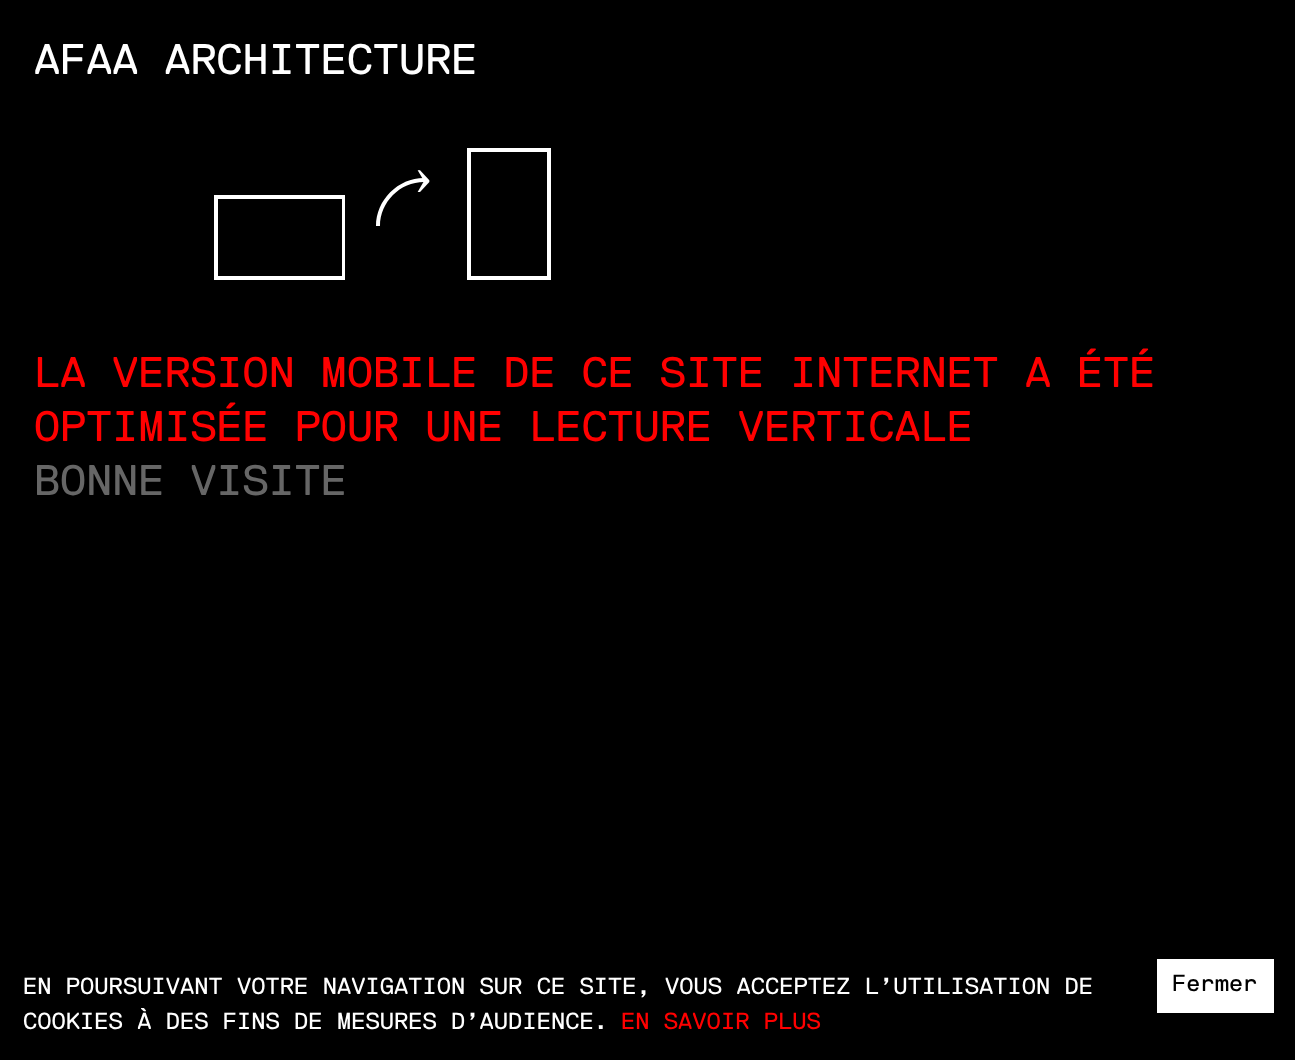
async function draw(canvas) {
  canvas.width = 1295;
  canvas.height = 1060;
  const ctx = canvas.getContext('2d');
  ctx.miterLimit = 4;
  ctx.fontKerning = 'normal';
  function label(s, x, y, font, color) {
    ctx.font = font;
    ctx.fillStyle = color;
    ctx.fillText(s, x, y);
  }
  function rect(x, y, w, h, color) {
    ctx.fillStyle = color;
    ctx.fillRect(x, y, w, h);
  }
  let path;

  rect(0, 0, 1295, 1060, '#000');
  label('AFAA ARCHITECTURE', 34, 74, '42.75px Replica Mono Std', '#fff');
  label('›', 414, 194, '57px Liberation Serif', '#fff');
  path = new Path2D('M376 226H380C380 202 400 182 424 182V178C398 178 376 200 376 226ZM467 148V280H551V148ZM547 276H471V152H547ZM214 280H345V195H214ZM218 199H342V276H218Z');
  ctx.fill(path);
  label('LA VERSION MOBILE DE CE SITE INTERNET A ÉTÉ', 34, 387, '42.75px Replica Mono Std', '#f00');
  label('OPTIMISÉE POUR UNE LECTURE VERTICALE', 34, 441, '42.75px Replica Mono Std', '#f00');
  label('BONNE VISITE', 34, 495, '42.75px Replica Mono Std', '#666');
  label('EN POURSUIVANT VOTRE NAVIGATION SUR CE SITE, VOUS ACCEPTEZ L’UTILISATION DE', 23, 994, '23.4px Replica Mono Std', '#fff');
  label('COOKIES À DES FINS DE MESURES D’AUDIENCE.', 23, 1029, '23.4px Replica Mono Std', '#fff');
  label('EN SAVOIR PLUS', 621, 1029, '23.4px Replica Mono Std', '#f00');
  rect(1157, 959, 117, 54, '#fff');
  label('Fermer', 1172, 991, '23.4px Replica Mono Std', '#000');
}

draw(document.querySelector('canvas'));
